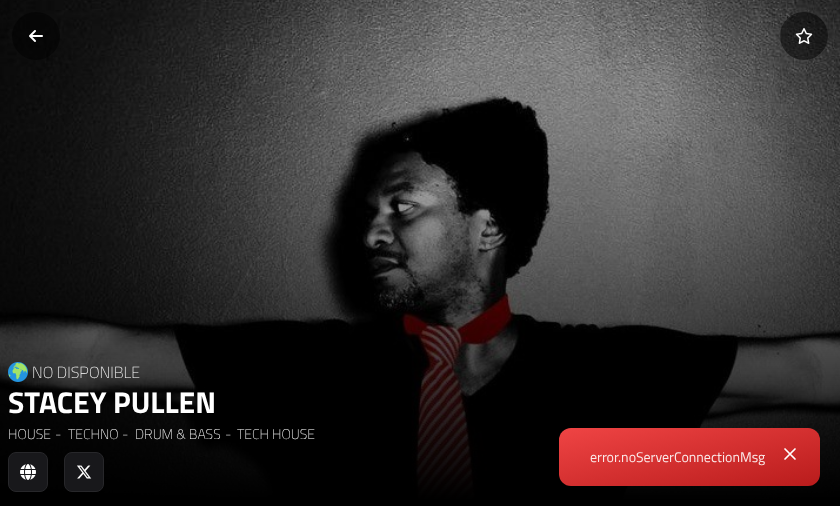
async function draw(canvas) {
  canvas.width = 840;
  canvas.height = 506;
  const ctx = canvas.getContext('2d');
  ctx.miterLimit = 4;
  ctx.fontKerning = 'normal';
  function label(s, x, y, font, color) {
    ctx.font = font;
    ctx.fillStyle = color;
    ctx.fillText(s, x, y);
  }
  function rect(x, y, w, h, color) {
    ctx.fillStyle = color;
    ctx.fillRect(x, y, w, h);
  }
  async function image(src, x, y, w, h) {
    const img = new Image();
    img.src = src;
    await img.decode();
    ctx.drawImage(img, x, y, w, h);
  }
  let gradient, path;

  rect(0, 0, 840, 506, '#000');
  await image('assets/img1.png', 0, 0, 840, 500);
  ctx.fillStyle = '#00000080';
  ctx.beginPath();
  ctx.arc(36, 36, 24, 0, 2 * Math.PI);
  ctx.fill();
  await image('assets/img2.png', 29, 30, 14, 12);
  ctx.beginPath();
  ctx.arc(804, 36, 24, 0, 2 * Math.PI);
  ctx.fill();
  await image('assets/img3.png', 795, 28, 18, 16);
  await image('assets/img4.png', 8, 362, 20, 20);
  label('NO DISPONIBLE', 32, 378, '200 16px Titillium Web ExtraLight', '#fff');
  label('STACEY PULLEN', 8, 413, 'bold 30px Titillium Web', '#fff');
  label('HOUSE', 8, 439, '200 14px Titillium Web ExtraLight', '#fff');
  label('-', 55, 439, '200 14px Titillium Web ExtraLight', '#fff');
  label('TECHNO', 68, 439, '200 14px Titillium Web ExtraLight', '#fff');
  label('-', 122, 439, '200 14px Titillium Web ExtraLight', '#fff');
  label('DRUM & BASS', 135, 439, '200 14px Titillium Web ExtraLight', '#fff');
  label('-', 225, 439, '200 14px Titillium Web ExtraLight', '#fff');
  label('TECH HOUSE', 237, 439, '200 14px Titillium Web ExtraLight', '#fff');
  ctx.fillStyle = '#18181b';
  ctx.beginPath();
  ctx.roundRect(8.5, 452.5, 39, 39, 7.5);
  ctx.fill();
  ctx.strokeStyle = '#27272a';
  ctx.stroke();
  await image('assets/img5.png', 20, 464, 16, 16);
  ctx.beginPath();
  ctx.roundRect(64.5, 452.5, 39, 39, 7.5);
  ctx.fill();
  ctx.stroke();
  await image('assets/img6.png', 77, 465, 15, 14);
  gradient = ctx.createLinearGradient(677, 402, 702, 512);
  gradient.addColorStop(0, '#ef4444');
  gradient.addColorStop(1, '#b91c1c');
  ctx.fillStyle = gradient;
  ctx.beginPath();
  ctx.roundRect(559, 428, 261, 58, 12);
  ctx.fill();
  label('error.noServerConnectionMsg', 590, 462, '14px Titillium Web', '#fbeaea');
  path = new Path2D('M785 459L795 449M785 449L795 459');
  ctx.strokeStyle = '#fff';
  ctx.lineWidth = 1.7;
  ctx.lineCap = 'round';
  ctx.lineJoin = 'round';
  ctx.stroke(path);
}

draw(document.querySelector('canvas'));
